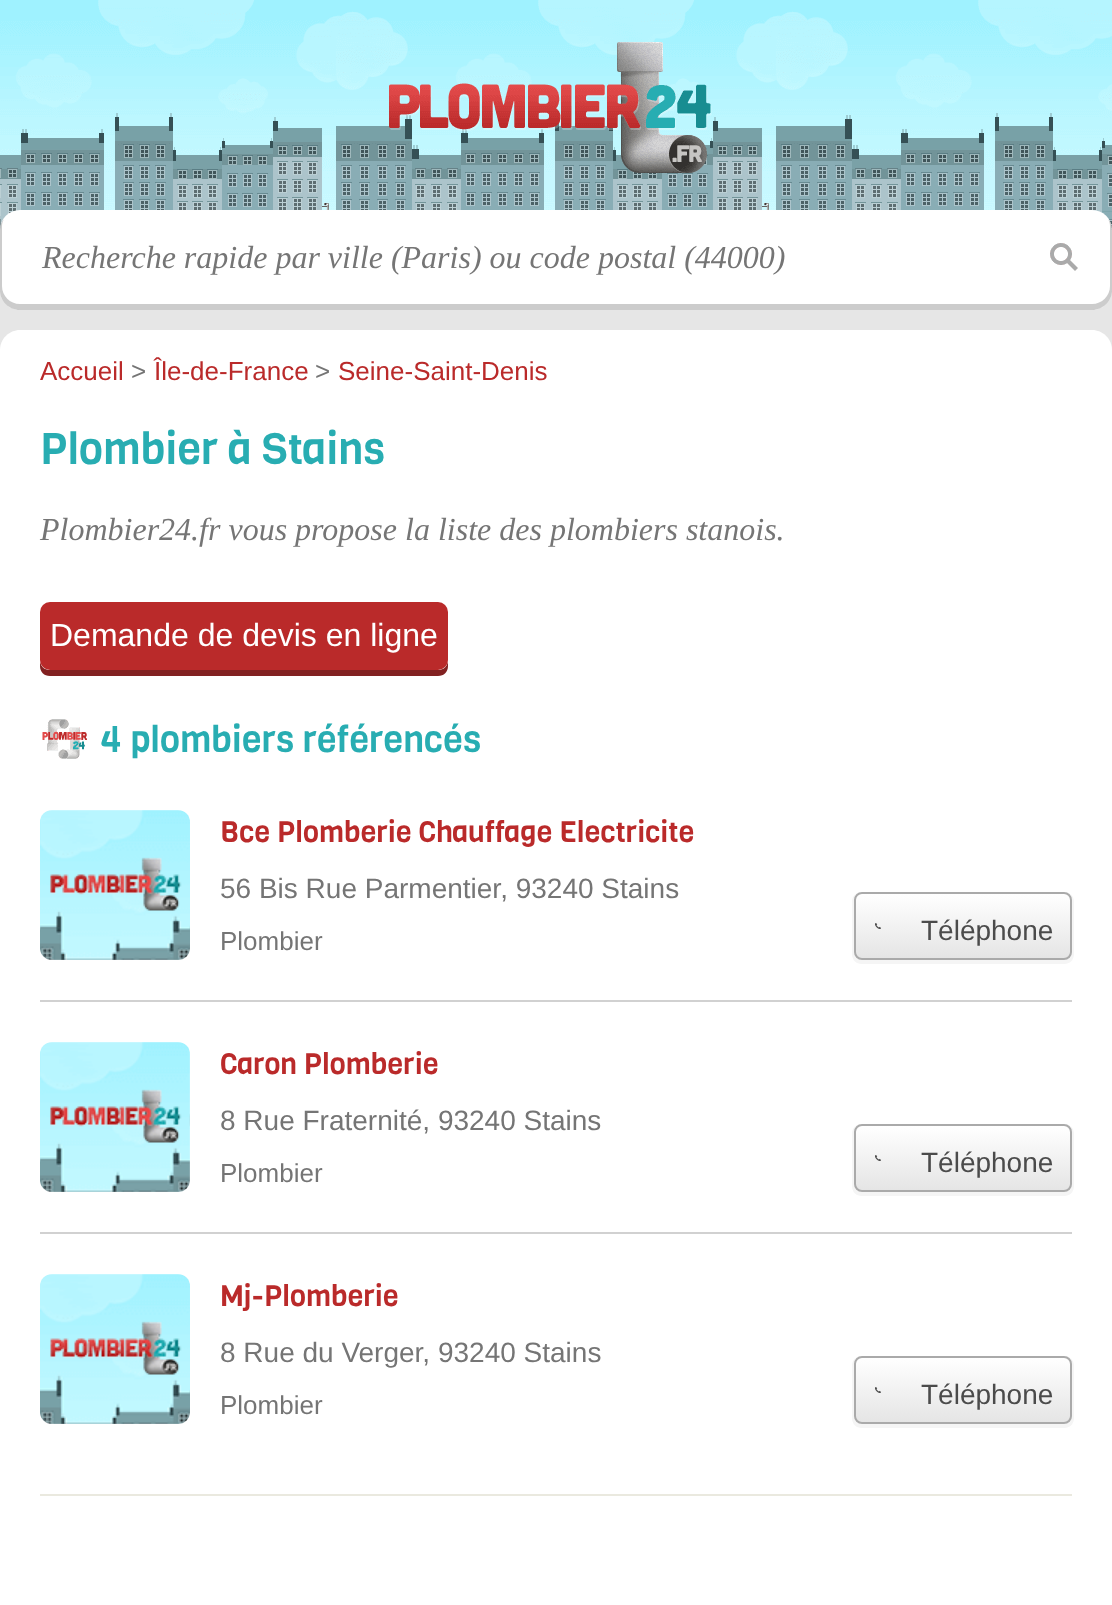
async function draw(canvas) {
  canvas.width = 1112;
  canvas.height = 1605;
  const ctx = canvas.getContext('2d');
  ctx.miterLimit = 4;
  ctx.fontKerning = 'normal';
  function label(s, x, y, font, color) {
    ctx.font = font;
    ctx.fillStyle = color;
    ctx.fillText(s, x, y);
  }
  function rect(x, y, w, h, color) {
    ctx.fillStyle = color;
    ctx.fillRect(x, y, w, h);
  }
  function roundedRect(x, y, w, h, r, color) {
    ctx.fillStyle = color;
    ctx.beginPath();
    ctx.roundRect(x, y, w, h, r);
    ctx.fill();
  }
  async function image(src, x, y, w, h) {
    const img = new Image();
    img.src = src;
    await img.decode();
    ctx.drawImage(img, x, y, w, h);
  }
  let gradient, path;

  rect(0, 0, 1112, 1605, '#e6e6e6');
  await image('assets/img1.png', 0, 0, 1112, 230);
  await image('assets/img2.png', 389, 42, 323, 131);
  roundedRect(0, 210, 1112, 100, 20, '#fff');
  ctx.fillStyle = '#00000033';
  path = new Path2D('M4 219C1 222 0 226 0 230V290C0 301 9 310 20 310H1092C1103 310 1112 301 1112 290V230C1112 226 1111 222 1108 219C1109 221 1110 223 1110 226V286C1110 296 1102 304 1092 304H20C10 304 2 296 2 286V226C2 223 3 221 4 219Z');
  ctx.fill(path);
  label('Recherche rapide par ville (Paris) ou code postal (44000)', 42, 268, 'italic 32px Liberation Serif', '#757575');
  await image('assets/img3.png', 1050, 243, 28, 28);
  ctx.fillStyle = '#fff';
  path = new Path2D('M20 330H1092C1103 330 1112 339 1112 350V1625H0V350C0 339 9 330 20 330Z');
  ctx.fill(path);
  label('Accueil', 40, 380, '26px Liberation Sans', '#ba2a2a');
  label('>', 131, 380, '26px Liberation Sans', '#757575');
  label('Île-de-France', 154, 380, '26px Liberation Sans', '#ba2a2a');
  label('>', 315, 380, '26px Liberation Sans', '#757575');
  label('Seine-Saint-Denis', 338, 380, '26px Liberation Sans', '#ba2a2a');
  label('Plombier à Stains', 40, 464, '48px viga', '#28adb2');
  label('Plombier24.fr vous propose la liste des plombiers stanois.', 40, 540, 'italic 32px Liberation Serif', '#757575');
  ctx.fillStyle = '#822121';
  path = new Path2D('M40 660V666C40 672 44 676 50 676H438C444 676 448 672 448 666V660C448 666 444 670 438 670H50C44 670 40 666 40 660Z');
  ctx.fill(path);
  roundedRect(40, 602, 408, 68, 10, '#ba2a2a');
  label('Demande de devis en ligne', 50, 646, '32px Liberation Sans', '#fff');
  rect(40, 1494, 1032, 2, '#eae9df');
  await image('assets/img4.png', 42, 719, 45, 40);
  label('4 plombiers référencés', 100, 752, '40px viga', '#28adb2');
  rect(40, 1000, 1032, 2, '#d1d1d1');
  await image('assets/img5.png', 40, 810, 150, 150);
  label('Bce Plomberie Chauffage Electricite', 220, 842, '32px viga', '#ba2a2a');
  label('56 Bis Rue Parmentier, 93240 Stains', 220, 898, '28px Liberation Sans', '#757575');
  label('Plombier', 220, 950, '26px Liberation Sans', '#757575');
  ctx.fillStyle = '#f5f5f5';
  path = new Path2D('M862 892C856 892 852 896 852 902V954C852 960 856 964 862 964H1064C1070 964 1074 960 1074 954V902C1074 896 1070 892 1064 892C1068 892 1072 896 1072 900V952C1072 956 1068 960 1064 960H862C858 960 854 956 854 952V900C854 896 858 892 862 892Z');
  ctx.fill(path);
  ctx.save();
  ctx.beginPath();
  ctx.roundRect(854, 892, 218, 68, 8);
  ctx.clip();
  gradient = ctx.createLinearGradient(963, 894, 963, 958);
  gradient.addColorStop(0, '#fff');
  gradient.addColorStop(1, '#e5e5e5');
  ctx.fillStyle = gradient;
  ctx.fillRect(854, 894, 218, 64);
  ctx.restore();
  ctx.beginPath();
  ctx.roundRect(855, 893, 216, 66, 7);
  ctx.strokeStyle = '#aaa';
  ctx.lineWidth = 2;
  ctx.stroke();
  await image('assets/img6.png', 875, 923, 6, 6);
  label('Téléphone', 921, 940, '28px Liberation Sans', '#4b4b4b');
  rect(40, 1232, 1032, 2, '#d1d1d1');
  await image('assets/img7.png', 40, 1042, 150, 150);
  label('Caron Plomberie', 220, 1074, '32px viga', '#ba2a2a');
  label('8 Rue Fraternité, 93240 Stains', 220, 1130, '28px Liberation Sans', '#757575');
  label('Plombier', 220, 1182, '26px Liberation Sans', '#757575');
  ctx.fillStyle = '#f5f5f5';
  path = new Path2D('M862 1124C856 1124 852 1128 852 1134V1186C852 1192 856 1196 862 1196H1064C1070 1196 1074 1192 1074 1186V1134C1074 1128 1070 1124 1064 1124C1068 1124 1072 1128 1072 1132V1184C1072 1188 1068 1192 1064 1192H862C858 1192 854 1188 854 1184V1132C854 1128 858 1124 862 1124Z');
  ctx.fill(path);
  ctx.save();
  ctx.beginPath();
  ctx.roundRect(854, 1124, 218, 68, 8);
  ctx.clip();
  gradient = ctx.createLinearGradient(963, 1126, 963, 1190);
  gradient.addColorStop(0, '#fff');
  gradient.addColorStop(1, '#e5e5e5');
  ctx.fillStyle = gradient;
  ctx.fillRect(854, 1126, 218, 64);
  ctx.restore();
  ctx.beginPath();
  ctx.roundRect(855, 1125, 216, 66, 7);
  ctx.stroke();
  await image('assets/img6.png', 875, 1155, 6, 6);
  label('Téléphone', 921, 1172, '28px Liberation Sans', '#4b4b4b');
  await image('assets/img8.png', 40, 1274, 150, 150);
  label('Mj-Plomberie', 220, 1306, '32px viga', '#ba2a2a');
  label('8 Rue du Verger, 93240 Stains', 220, 1362, '28px Liberation Sans', '#757575');
  label('Plombier', 220, 1414, '26px Liberation Sans', '#757575');
  ctx.fillStyle = '#f5f5f5';
  path = new Path2D('M862 1356C856 1356 852 1360 852 1366V1418C852 1424 856 1428 862 1428H1064C1070 1428 1074 1424 1074 1418V1366C1074 1360 1070 1356 1064 1356C1068 1356 1072 1360 1072 1364V1416C1072 1420 1068 1424 1064 1424H862C858 1424 854 1420 854 1416V1364C854 1360 858 1356 862 1356Z');
  ctx.fill(path);
  ctx.save();
  ctx.beginPath();
  ctx.roundRect(854, 1356, 218, 68, 8);
  ctx.clip();
  gradient = ctx.createLinearGradient(963, 1358, 963, 1422);
  gradient.addColorStop(0, '#fff');
  gradient.addColorStop(1, '#e5e5e5');
  ctx.fillStyle = gradient;
  ctx.fillRect(854, 1358, 218, 64);
  ctx.restore();
  ctx.beginPath();
  ctx.roundRect(855, 1357, 216, 66, 7);
  ctx.stroke();
  await image('assets/img6.png', 875, 1387, 6, 6);
  label('Téléphone', 921, 1404, '28px Liberation Sans', '#4b4b4b');
}

draw(document.querySelector('canvas'));
